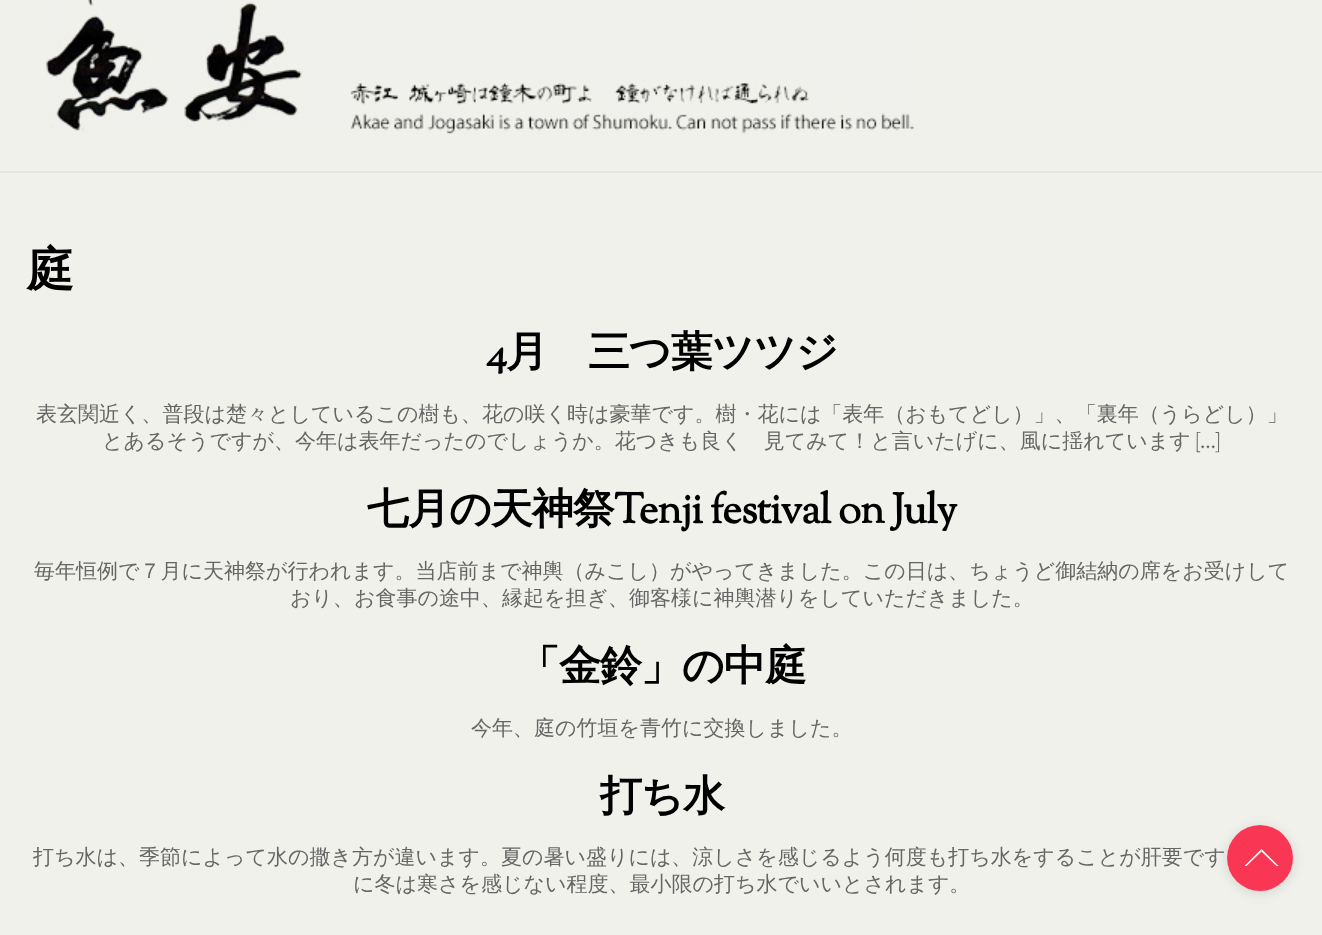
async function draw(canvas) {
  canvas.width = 1322;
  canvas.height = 935;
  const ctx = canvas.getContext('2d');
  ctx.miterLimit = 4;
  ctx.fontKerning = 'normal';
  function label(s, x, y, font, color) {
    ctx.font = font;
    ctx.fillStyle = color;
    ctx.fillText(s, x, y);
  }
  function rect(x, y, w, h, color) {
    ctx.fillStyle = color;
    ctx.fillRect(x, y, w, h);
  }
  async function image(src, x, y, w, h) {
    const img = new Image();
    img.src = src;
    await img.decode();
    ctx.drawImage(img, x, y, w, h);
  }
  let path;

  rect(0, 0, 1322, 935, '#f1f1ec');
  rect(0, 171, 1322, 2, '#e5e5e0');
  await image('assets/img1.png', 46, 0, 868, 134);
  ctx.letterSpacing = '-1px';
  label('庭', 26, 286, 'bold 48px WenQuanYi Zen Hei', '#000');
  ctx.letterSpacing = '-1.05px';
  label('4', 486, 366, 'bold 42px Sorts Mill Goudy', '#000');
  label('月　三つ葉ツツジ', 506, 366, 'bold 42px WenQuanYi Zen Hei', '#000');
  ctx.letterSpacing = '0px';
  label('表玄関近く、普段は楚々としているこの樹も、花の咲く時は豪華です。樹・花には「表年（おもてどし）」、「裏年（うらどし）」', 36, 421, '500 21px WenQuanYi Zen Hei', '#666');
  label('とあるそうですが、今年は表年だったのでしょうか。花つきも良く　見てみて！と言いたげに、風に揺れています', 102, 448, '500 21px WenQuanYi Zen Hei', '#666');
  label('[…]', 1195, 448, '21px Sorts Mill Goudy', '#666');
  ctx.letterSpacing = '-1.05px';
  label('七月の天神祭', 367, 523, 'bold 42px WenQuanYi Zen Hei', '#000');
  label('Tenji festival on July', 614, 523, 'bold 42px Sorts Mill Goudy', '#000');
  ctx.letterSpacing = '0px';
  label('毎年恒例で７月に天神祭が行われます。当店前まで神輿（みこし）がやってきました。この日は、ちょうど御結納の席をお受けして', 34, 578, '500 21px WenQuanYi Zen Hei', '#666');
  label('おり、お食事の途中、縁起を担ぎ、御客様に神輿潜りをしていただきました。', 290, 605, '500 21px WenQuanYi Zen Hei', '#666');
  ctx.letterSpacing = '-1.05px';
  label('「金鈴」の中庭', 518, 680, 'bold 42px WenQuanYi Zen Hei', '#000');
  ctx.letterSpacing = '0px';
  label('今年、庭の竹垣を青竹に交換しました。', 471, 735, '500 21px WenQuanYi Zen Hei', '#666');
  ctx.letterSpacing = '-1.05px';
  label('打ち水', 600, 810, 'bold 42px WenQuanYi Zen Hei', '#000');
  ctx.letterSpacing = '0px';
  label('打ち水は、季節によって水の撒き方が違います。夏の暑い盛りには、涼しさを感じるよう何度も打ち水をすることが肝要です', 33, 864, '500 21px WenQuanYi Zen Hei', '#666');
  label('に冬は寒さを感じない程度、最小限の打ち水でいいとされます。', 353, 891, '500 21px WenQuanYi Zen Hei', '#666');
  ctx.save();
  path = new Path2D('M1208 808H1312V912H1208ZM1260 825C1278 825 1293 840 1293 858C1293 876 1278 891 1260 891C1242 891 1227 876 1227 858C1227 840 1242 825 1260 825Z');
  ctx.clip(path, 'evenodd');
  ctx.fillStyle = '#0000001f';
  ctx.filter = 'blur(6px)';
  ctx.beginPath();
  ctx.roundRect(1227, 827, 66, 66, 33);
  ctx.fill();
  ctx.filter = 'none';
  ctx.restore();
  ctx.fillStyle = '#fb0930cc';
  ctx.beginPath();
  ctx.arc(1260, 858, 33, 0, 2 * Math.PI);
  ctx.fill();
  ctx.fillStyle = '#fff';
  path = new Path2D('M1261.5 849L1278.5 866H1276.5L1261.5 851.5Z');
  ctx.fill(path);
  path = new Path2D('M1244.5 866L1261.5 849V851.5L1246.5 866Z');
  ctx.fill(path);
}

draw(document.querySelector('canvas'));
